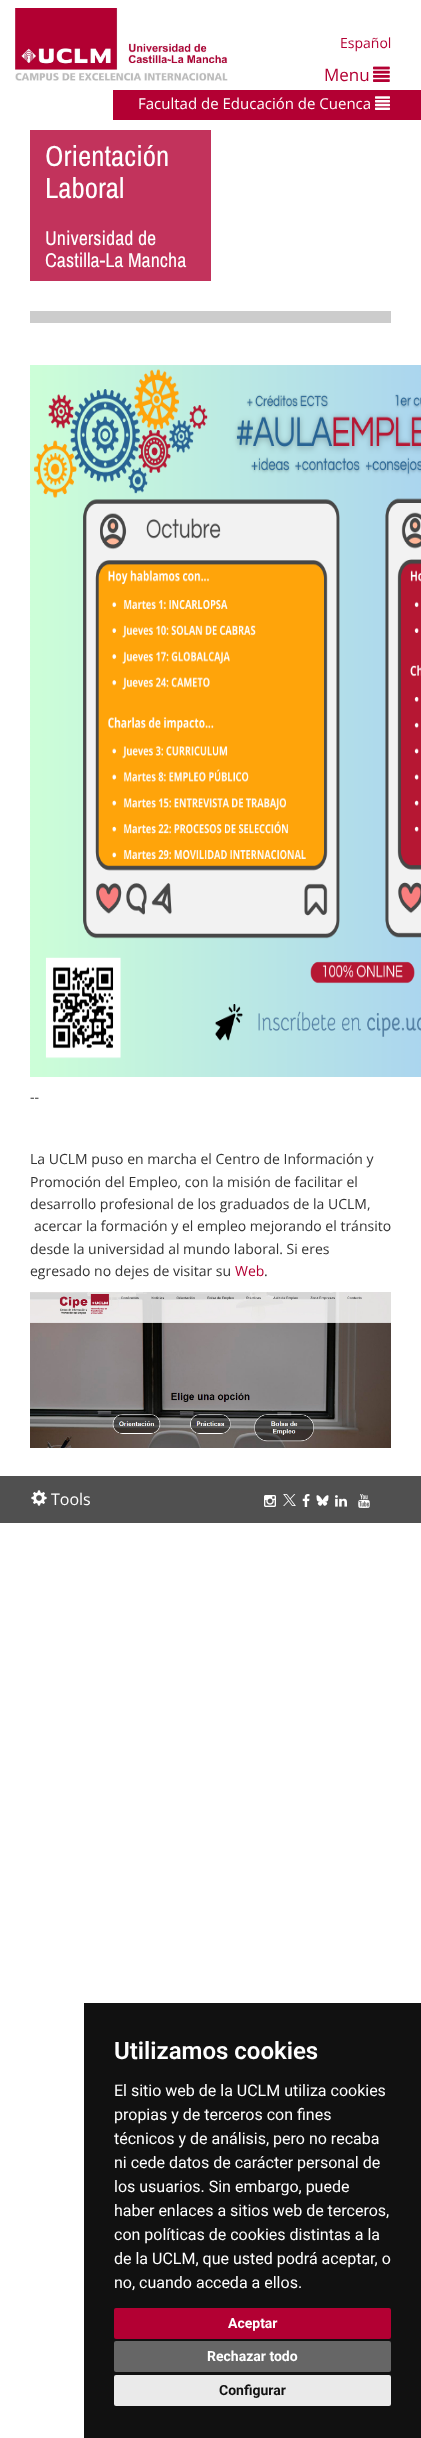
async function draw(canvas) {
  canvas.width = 421;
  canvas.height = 2438;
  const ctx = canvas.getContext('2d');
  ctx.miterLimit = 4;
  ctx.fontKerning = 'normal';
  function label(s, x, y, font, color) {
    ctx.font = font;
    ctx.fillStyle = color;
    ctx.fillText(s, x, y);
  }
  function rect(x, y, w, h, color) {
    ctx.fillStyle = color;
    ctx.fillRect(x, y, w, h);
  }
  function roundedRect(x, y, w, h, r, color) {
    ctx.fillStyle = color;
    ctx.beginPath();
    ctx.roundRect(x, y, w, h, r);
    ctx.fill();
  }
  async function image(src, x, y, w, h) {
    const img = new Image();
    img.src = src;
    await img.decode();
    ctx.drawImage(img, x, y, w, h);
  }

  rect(0, 0, 421, 2438, '#fff');
  await image('assets/img1.png', 15, 8, 213, 73);
  label('Español', 340, 48, '14px Open Sans', '#b30033');
  label('Menu', 324, 81, '17px Open Sans', '#b30033');
  await image('assets/img2.png', 373, 66, 17, 16);
  rect(113, 90, 308, 30, '#b30033');
  label('Facultad de Educación de Cuenca', 138, 109, '15px Open Sans', '#fff');
  await image('assets/img3.png', 375, 96, 15, 14);
  rect(30, 130, 181, 151, '#c2335c');
  label('Orientación', 45, 166, '29px Archivo Narrow', '#fff');
  label('Laboral', 45, 198, '29px Archivo Narrow', '#fff');
  label('Universidad de', 45, 245, '20px Archivo Narrow', '#fff');
  label('Castilla-La Mancha', 45, 267, '20px Archivo Narrow', '#fff');
  rect(30, 311, 361, 12, '#ccc');
  await image('assets/img4.png', 30, 365, 391, 712);
  label('--', 30, 1102, '14px Open Sans', '#333');
  label('La UCLM puso en marcha el Centro de Información y', 30, 1164, '14px Open Sans', '#333');
  label('Promoción del Empleo, con la misión de facilitar el', 30, 1187, '14px Open Sans', '#333');
  label('desarrollo profesional de los graduados de la UCLM,', 30, 1209, '14px Open Sans', '#333');
  label('acercar la formación y el empleo mejorando el tránsito', 34, 1231, '14px Open Sans', '#333');
  label('desde la universidad al mundo laboral. Si eres', 30, 1254, '14px Open Sans', '#333');
  label('egresado no dejes de visitar su', 30, 1276, '14px Open Sans', '#333');
  label('Web', 235, 1276, '14px Open Sans', '#b30033');
  label('.', 264, 1276, '14px Open Sans', '#333');
  await image('assets/img5.png', 30, 1292, 361, 156);
  rect(0, 1476, 421, 47, '#505050');
  await image('assets/img6.png', 31, 1490, 16, 16);
  label('Tools', 51, 1505, '16px Open Sans', '#fff');
  await image('assets/img7.png', 264, 1495, 12, 12);
  await image('assets/img8.png', 283, 1494, 13, 12);
  await image('assets/img9.png', 302, 1494, 8, 13);
  await image('assets/img10.png', 316, 1495, 13, 11);
  await image('assets/img11.png', 335, 1495, 12, 12);
  await image('assets/img12.png', 358, 1494, 12, 14);
  rect(84, 2003, 337, 435, '#111');
  label('Utilizamos cookies', 114, 2059, '600 24px Roboto', '#fff');
  label('El sitio web de la UCLM utiliza cookies', 114, 2096, '16px Roboto', '#fff');
  label('propias y de terceros con fines', 114, 2120, '16px Roboto', '#fff');
  label('técnicos y de análisis, pero no recaba', 114, 2144, '16px Roboto', '#fff');
  label('ni cede datos de carácter personal de', 114, 2168, '16px Roboto', '#fff');
  label('los usuarios. Sin embargo, puede', 114, 2192, '16px Roboto', '#fff');
  label('haber enlaces a sitios web de terceros,', 114, 2216, '16px Roboto', '#fff');
  label('con políticas de cookies distintas a la', 114, 2240, '16px Roboto', '#fff');
  label('de la UCLM, que usted podrá aceptar, o', 114, 2264, '16px Roboto', '#fff');
  label('no, cuando acceda a ellos.', 114, 2288, '16px Roboto', '#fff');
  roundedRect(114, 2308, 277, 31, 2, '#b30033');
  label('Aceptar', 228, 2328, 'bold 14px Roboto', '#fff');
  roundedRect(114, 2341, 277, 31, 2, '#666');
  label('Rechazar todo', 207, 2361, 'bold 14px Roboto', '#fff');
  roundedRect(114, 2375, 277, 31, 2, '#eaeaea');
  label('Configurar', 219, 2395, 'bold 14px Roboto', '#111');
}

draw(document.querySelector('canvas'));
